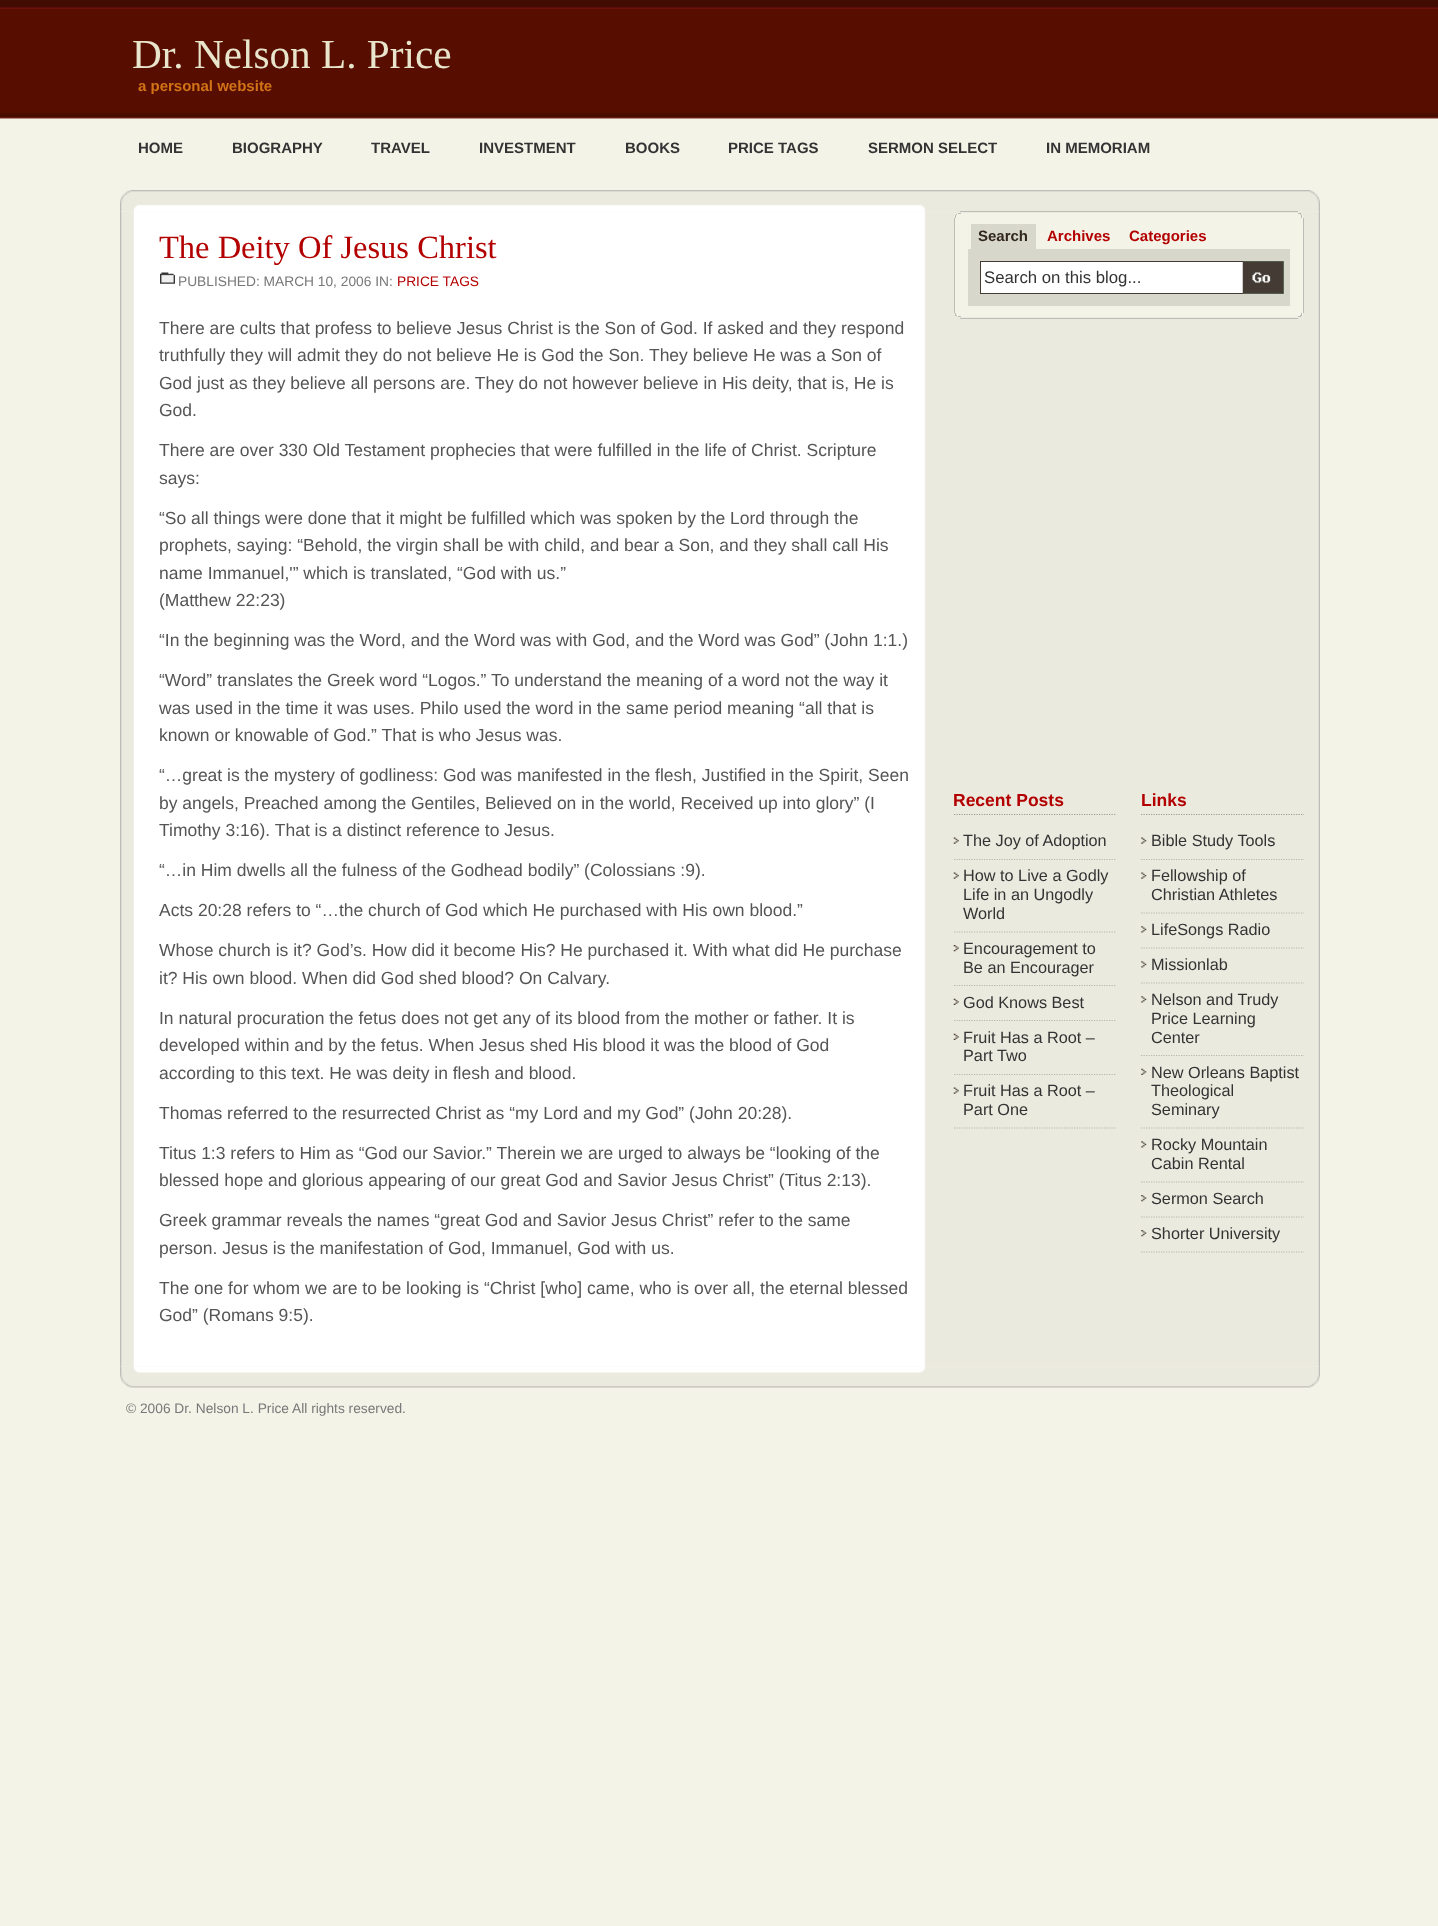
async function draw(canvas) {
  canvas.width = 1438;
  canvas.height = 1926;
  const ctx = canvas.getContext('2d');
  ctx.miterLimit = 4;
  ctx.fontKerning = 'normal';
  function label(s, x, y, font, color) {
    ctx.font = font;
    ctx.fillStyle = color;
    ctx.fillText(s, x, y);
  }
  function rect(x, y, w, h, color) {
    ctx.fillStyle = color;
    ctx.fillRect(x, y, w, h);
  }
  async function image(src, x, y, w, h) {
    const img = new Image();
    img.src = src;
    await img.decode();
    ctx.drawImage(img, x, y, w, h);
  }
  let path;

  rect(0, 0, 1438, 1926, '#f4f3e8');
  await image('assets/img1.png', 0, 0, 1438, 119);
  label('Dr. Nelson L. Price', 132, 68, '41.25px Liberation Serif', '#e8e5cc');
  label('a personal website', 138, 91, 'bold 15px Liberation Sans', '#d27318');
  label('HOME', 138, 153, 'bold 15px Liberation Sans', '#333');
  label('BIOGRAPHY', 232, 153, 'bold 15px Liberation Sans', '#333');
  label('TRAVEL', 371, 153, 'bold 15px Liberation Sans', '#333');
  label('INVESTMENT', 479, 153, 'bold 15px Liberation Sans', '#333');
  label('BOOKS', 625, 153, 'bold 15px Liberation Sans', '#333');
  label('PRICE TAGS', 728, 153, 'bold 15px Liberation Sans', '#333');
  label('SERMON SELECT', 868, 153, 'bold 15px Liberation Sans', '#333');
  label('IN MEMORIAM', 1046, 153, 'bold 15px Liberation Sans', '#333');
  await image('assets/img2.png', 120, 190, 1200, 22);
  await image('assets/img3.png', 120, 211, 1200, 1155);
  label('The Deity Of Jesus Christ', 159, 258, '32.5px Liberation Serif', '#b30000');
  await image('assets/img4.png', 160, 272, 15, 12);
  label('PUBLISHED: MARCH 10, 2006 IN:', 178, 286, '13.75px Liberation Sans', '#787878');
  label('PRICE TAGS', 397, 286, '13.75px Liberation Sans', '#b30000');
  label('There are cults that profess to believe Jesus Christ is the Son of God. If asked and they respond', 159, 334, '17.5px Liberation Sans', '#555');
  label('truthfully they will admit they do not believe He is God the Son. They believe He was a Son of', 159, 361, '17.5px Liberation Sans', '#555');
  label('God just as they believe all persons are. They do not however believe in His deity, that is, He is', 159, 389, '17.5px Liberation Sans', '#555');
  label('God.', 159, 416, '17.5px Liberation Sans', '#555');
  label('There are over 330 Old Testament prophecies that were fulfilled in the life of Christ. Scripture', 159, 456, '17.5px Liberation Sans', '#555');
  label('says:', 159, 484, '17.5px Liberation Sans', '#555');
  label('“So all things were done that it might be fulfilled which was spoken by the Lord through the', 159, 524, '17.5px Liberation Sans', '#555');
  label('prophets, saying: “Behold, the virgin shall be with child, and bear a Son, and they shall call His', 159, 551, '17.5px Liberation Sans', '#555');
  label('name Immanuel,\'” which is translated, “God with us.”', 159, 579, '17.5px Liberation Sans', '#555');
  label('(Matthew 22:23)', 159, 606, '17.5px Liberation Sans', '#555');
  label('“In the beginning was the Word, and the Word was with God, and the Word was God” (John 1:1.)', 159, 646, '17.5px Liberation Sans', '#555');
  label('“Word” translates the Greek word “Logos.” To understand the meaning of a word not the way it', 159, 686, '17.5px Liberation Sans', '#555');
  label('was used in the time it was uses. Philo used the word in the same period meaning “all that is', 159, 714, '17.5px Liberation Sans', '#555');
  label('known or knowable of God.” That is who Jesus was.', 159, 741, '17.5px Liberation Sans', '#555');
  label('“…great is the mystery of godliness: God was manifested in the flesh, Justified in the Spirit, Seen', 159, 781, '17.5px Liberation Sans', '#555');
  label('by angels, Preached among the Gentiles, Believed on in the world, Received up into glory” (I', 159, 809, '17.5px Liberation Sans', '#555');
  label('Timothy 3:16). That is a distinct reference to Jesus.', 159, 836, '17.5px Liberation Sans', '#555');
  label('“…in Him dwells all the fulness of the Godhead bodily” (Colossians :9).', 159, 876, '17.5px Liberation Sans', '#555');
  label('Acts 20:28 refers to “…the church of God which He purchased with His own blood.”', 159, 916, '17.5px Liberation Sans', '#555');
  label('Whose church is it? God’s. How did it become His? He purchased it. With what did He purchase', 159, 956, '17.5px Liberation Sans', '#555');
  label('it? His own blood. When did God shed blood? On Calvary.', 159, 984, '17.5px Liberation Sans', '#555');
  label('In natural procuration the fetus does not get any of its blood from the mother or father. It is', 159, 1024, '17.5px Liberation Sans', '#555');
  label('developed within and by the fetus. When Jesus shed His blood it was the blood of God', 159, 1051, '17.5px Liberation Sans', '#555');
  label('according to this text. He was deity in flesh and blood.', 159, 1079, '17.5px Liberation Sans', '#555');
  label('Thomas referred to the resurrected Christ as “my Lord and my God” (John 20:28).', 159, 1119, '17.5px Liberation Sans', '#555');
  label('Titus 1:3 refers to Him as “God our Savior.” Therein we are urged to always be “looking of the', 159, 1159, '17.5px Liberation Sans', '#555');
  label('blessed hope and glorious appearing of our great God and Savior Jesus Christ” (Titus 2:13).', 159, 1186, '17.5px Liberation Sans', '#555');
  label('Greek grammar reveals the names “great God and Savior Jesus Christ” refer to the same', 159, 1226, '17.5px Liberation Sans', '#555');
  label('person. Jesus is the manifestation of God, Immanuel, God with us.', 159, 1254, '17.5px Liberation Sans', '#555');
  label('The one for whom we are to be looking is “Christ [who] came, who is over all, the eternal blessed', 159, 1294, '17.5px Liberation Sans', '#555');
  label('God” (Romans 9:5).', 159, 1321, '17.5px Liberation Sans', '#555');
  rect(960, 211, 338, 1, '#bdbcb6');
  rect(958, 213, 342, 1, '#f4f3e8');
  rect(1298, 213, 3, 1, '#bdbcb6');
  rect(958, 213, 3, 1, '#bdbcb6');
  rect(956, 214, 345, 1, '#f4f3e8');
  rect(1300, 214, 1, 1, '#bdbcb6');
  rect(956, 214, 1, 1, '#bdbcb6');
  rect(955, 215, 348, 101, '#f4f3e8');
  rect(1301, 215, 1, 3, '#bdbcb6');
  rect(955, 215, 1, 3, '#bdbcb6');
  rect(1303, 218, 1, 95, '#bdbcb6');
  rect(954, 218, 1, 95, '#bdbcb6');
  rect(971, 224, 65, 25, '#d8d7cc');
  label('Search', 978, 241, 'bold 15px Liberation Sans', '#30261e');
  label('Archives', 1047, 241, 'bold 15px Liberation Sans', '#b30000');
  label('Categories', 1129, 241, 'bold 15px Liberation Sans', '#b30000');
  rect(968, 249, 322, 57, '#d8d7cc');
  rect(981, 262, 262, 31, '#fff');
  ctx.strokeStyle = '#443b34';
  ctx.strokeRect(980.5, 261.5, 269, 32);
  label('Search on this blog...', 984, 283, '16.75px Liberation Sans', '#333');
  rect(1243, 261, 41, 33, '#688670');
  await image('assets/img5.png', 1242, 261, 42, 33);
  rect(1301, 313, 1, 3, '#bdbcb6');
  rect(955, 313, 1, 3, '#bdbcb6');
  rect(1300, 315, 1, 1, '#bdbcb6');
  rect(956, 315, 1, 1, '#bdbcb6');
  rect(958, 316, 342, 1, '#f4f3e8');
  rect(1298, 316, 3, 1, '#bdbcb6');
  rect(958, 316, 3, 1, '#bdbcb6');
  rect(960, 318, 338, 1, '#bdbcb6');
  path = new Path2D('M954 814.5H1116');
  ctx.strokeStyle = '#a09e8c';
  ctx.lineWidth = 1.2;
  ctx.setLineDash([1.25, 1.25]);
  ctx.stroke(path);
  label('Recent Posts', 953, 806, 'bold 17.5px Liberation Sans', '#b30000');
  await image('assets/img6.png', 953, 837, 6, 7);
  path = new Path2D('M954 859.5H1116');
  ctx.strokeStyle = '#b8b7af';
  ctx.stroke(path);
  label('The Joy of Adoption', 963, 846, '16.25px Liberation Sans', '#333');
  await image('assets/img6.png', 953, 872, 6, 7);
  path = new Path2D('M954 932H1116');
  ctx.stroke(path);
  label('How to Live a Godly', 963, 881, '16.25px Liberation Sans', '#333');
  label('Life in an Ungodly', 963, 900, '16.25px Liberation Sans', '#333');
  label('World', 963, 919, '16.25px Liberation Sans', '#333');
  await image('assets/img7.png', 953, 945, 6, 7);
  path = new Path2D('M954 985.5H1116');
  ctx.stroke(path);
  label('Encouragement to', 963, 954, '16.25px Liberation Sans', '#333');
  label('Be an Encourager', 963, 973, '16.25px Liberation Sans', '#333');
  await image('assets/img8.png', 953, 998, 6, 7);
  path = new Path2D('M954 1020.5H1116');
  ctx.stroke(path);
  label('God Knows Best', 963, 1008, '16.25px Liberation Sans', '#333');
  await image('assets/img8.png', 953, 1033, 6, 7);
  path = new Path2D('M954 1074.5H1116');
  ctx.stroke(path);
  label('Fruit Has a Root –', 963, 1043, '16.25px Liberation Sans', '#333');
  label('Part Two', 963, 1061, '16.25px Liberation Sans', '#333');
  await image('assets/img6.png', 953, 1087, 6, 7);
  path = new Path2D('M954 1128H1116');
  ctx.stroke(path);
  label('Fruit Has a Root –', 963, 1096, '16.25px Liberation Sans', '#333');
  label('Part One', 963, 1115, '16.25px Liberation Sans', '#333');
  path = new Path2D('M1141 814.5H1304');
  ctx.strokeStyle = '#a09e8c';
  ctx.stroke(path);
  label('Links', 1141, 806, 'bold 17.5px Liberation Sans', '#b30000');
  await image('assets/img9.png', 1141, 837, 6, 7);
  path = new Path2D('M1141 859.5H1304');
  ctx.strokeStyle = '#b8b7af';
  ctx.stroke(path);
  label('Bible Study Tools', 1151, 846, '16.25px Liberation Sans', '#333');
  await image('assets/img9.png', 1141, 872, 6, 7);
  path = new Path2D('M1141 913H1304');
  ctx.stroke(path);
  label('Fellowship of', 1151, 881, '16.25px Liberation Sans', '#333');
  label('Christian Athletes', 1151, 900, '16.25px Liberation Sans', '#333');
  await image('assets/img10.png', 1141, 926, 6, 7);
  path = new Path2D('M1141 948H1304');
  ctx.stroke(path);
  label('LifeSongs Radio', 1151, 935, '16.25px Liberation Sans', '#333');
  await image('assets/img10.png', 1141, 961, 6, 7);
  path = new Path2D('M1141 983H1304');
  ctx.stroke(path);
  label('Missionlab', 1151, 970, '16.25px Liberation Sans', '#333');
  await image('assets/img10.png', 1141, 996, 6, 7);
  path = new Path2D('M1141 1055.5H1304');
  ctx.stroke(path);
  label('Nelson and Trudy', 1151, 1005, '16.25px Liberation Sans', '#333');
  label('Price Learning', 1151, 1024, '16.25px Liberation Sans', '#333');
  label('Center', 1151, 1043, '16.25px Liberation Sans', '#333');
  await image('assets/img11.png', 1141, 1068, 6, 7);
  path = new Path2D('M1141 1128H1304');
  ctx.stroke(path);
  label('New Orleans Baptist', 1151, 1078, '16.25px Liberation Sans', '#333');
  label('Theological', 1151, 1096, '16.25px Liberation Sans', '#333');
  label('Seminary', 1151, 1115, '16.25px Liberation Sans', '#333');
  await image('assets/img10.png', 1141, 1141, 6, 7);
  path = new Path2D('M1141 1182H1304');
  ctx.stroke(path);
  label('Rocky Mountain', 1151, 1150, '16.25px Liberation Sans', '#333');
  label('Cabin Rental', 1151, 1169, '16.25px Liberation Sans', '#333');
  await image('assets/img12.png', 1141, 1195, 6, 7);
  path = new Path2D('M1141 1217H1304');
  ctx.stroke(path);
  label('Sermon Search', 1151, 1204, '16.25px Liberation Sans', '#333');
  await image('assets/img12.png', 1141, 1230, 6, 7);
  path = new Path2D('M1141 1252H1304');
  ctx.stroke(path);
  label('Shorter University', 1151, 1239, '16.25px Liberation Sans', '#333');
  await image('assets/img13.png', 120, 1366, 1200, 22);
  label('© 2006 Dr. Nelson L. Price All rights reserved.', 126, 1413, '13.75px Liberation Sans', '#787878');
}

draw(document.querySelector('canvas'));
